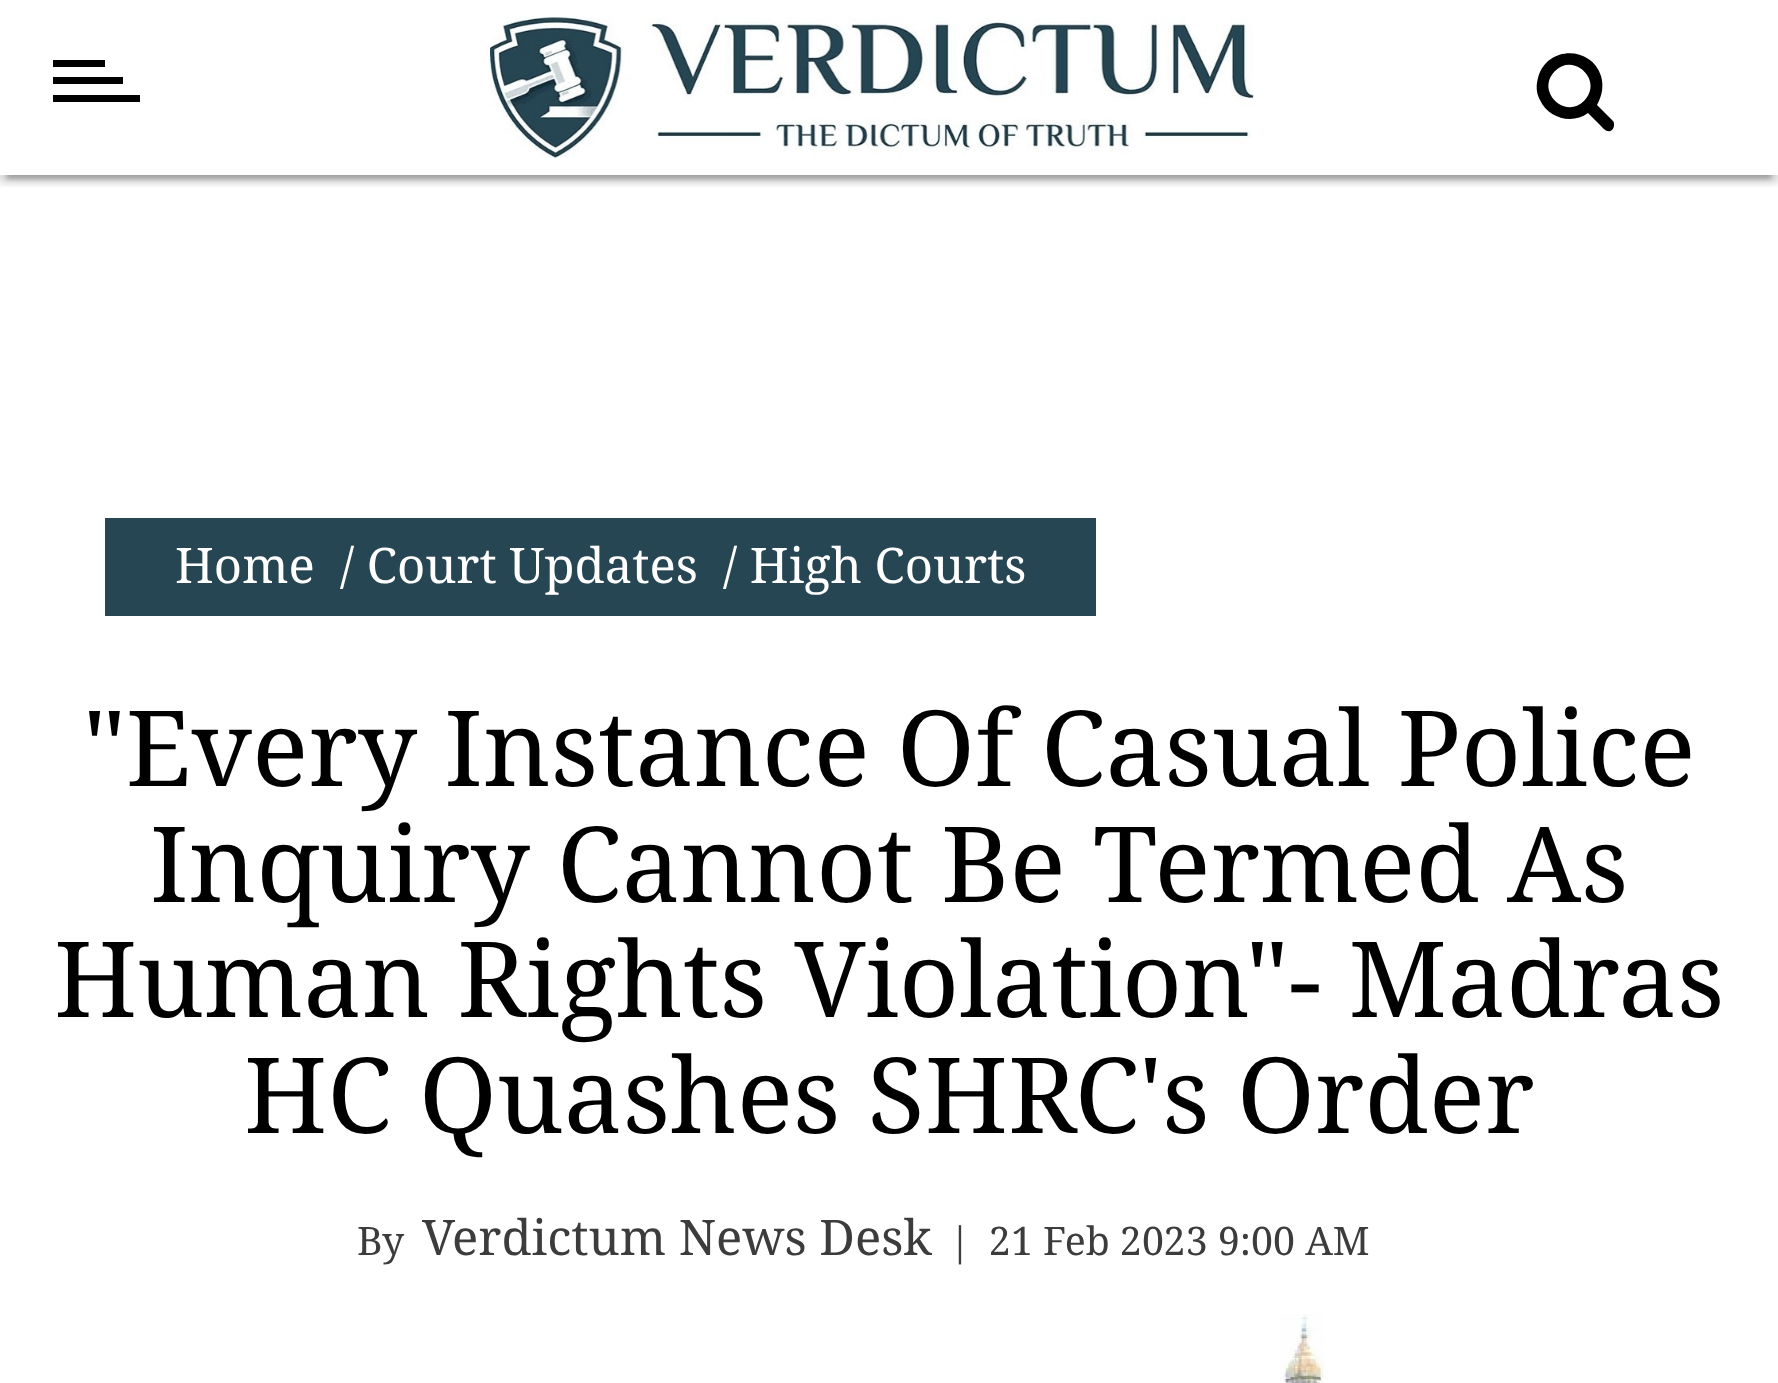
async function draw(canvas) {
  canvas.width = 1778;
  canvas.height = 1383;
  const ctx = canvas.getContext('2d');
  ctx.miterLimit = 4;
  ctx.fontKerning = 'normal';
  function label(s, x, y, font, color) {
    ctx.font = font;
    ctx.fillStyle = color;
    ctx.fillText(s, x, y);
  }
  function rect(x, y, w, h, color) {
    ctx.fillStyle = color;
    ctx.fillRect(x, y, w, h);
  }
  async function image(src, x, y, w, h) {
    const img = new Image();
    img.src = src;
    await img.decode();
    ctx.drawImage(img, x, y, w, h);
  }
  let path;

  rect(0, 0, 1778, 1383, '#fff');
  ctx.save();
  ctx.beginPath();
  ctx.rect(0, 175, 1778, 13);
  ctx.clip();
  ctx.fillStyle = '#0000001f';
  ctx.filter = 'blur(9px)';
  ctx.beginPath();
  ctx.rect(0, 4, 1778, 175);
  ctx.fill();
  ctx.filter = 'none';
  ctx.restore();
  ctx.save();
  ctx.beginPath();
  ctx.rect(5, 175, 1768, 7);
  ctx.clip();
  ctx.fillStyle = '#00000033';
  ctx.filter = 'blur(2px)';
  ctx.beginPath();
  ctx.rect(7, 18, 1764, 161);
  ctx.fill();
  ctx.filter = 'none';
  ctx.restore();
  ctx.save();
  ctx.beginPath();
  ctx.rect(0, 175, 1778, 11);
  ctx.clip();
  ctx.fillStyle = '#00000024';
  ctx.filter = 'blur(3.5px)';
  ctx.beginPath();
  ctx.rect(0, 7, 1778, 175);
  ctx.fill();
  ctx.filter = 'none';
  ctx.restore();
  rect(53, 95, 87, 7, '#000');
  rect(53, 60, 52, 7, '#000');
  rect(53, 77, 70, 7, '#000');
  await image('assets/img1.png', 490, 17, 764, 141);
  path = new Path2D('M1584 101C1604 81 1574 52 1555 71C1535 91 1565 120 1584 101ZM1614 125C1614 127 1613 129 1612 130C1607 134 1602 127 1599 124L1588 113C1572 125 1548 118 1540 100C1536 93 1536 85 1538 78C1546 46 1591 45 1601 76C1604 86 1602 96 1597 105L1613 121C1614 122 1614 123 1614 125Z');
  ctx.fill(path);
  rect(105, 518, 991, 98, '#264653');
  label('Home', 175, 583, '49px Noto Serif', '#fff');
  label('/ Court Updates', 340, 583, '49px Noto Serif', '#fff');
  label('/ High Courts', 723, 583, '49px Noto Serif', '#fff');
  label('"Every Instance Of Casual Police', 83, 786, '105px Noto Serif', '#000');
  label('Inquiry Cannot Be Termed As', 150, 902, '105px Noto Serif', '#000');
  label('Human Rights Violation"- Madras', 54, 1017, '105px Noto Serif', '#000');
  label('HC Quashes SHRC\'s Order', 244, 1133, '105px Noto Serif', '#000');
  label('By', 357, 1255, '39.25px Noto Serif', '#3c3c3c');
  label('Verdictum News Desk', 422, 1255, '49px Noto Serif', '#3c3c3c');
  label('|', 949, 1255, '39.25px Noto Serif', '#3c3c3c');
  label('21 Feb 2023 9:00 AM', 989, 1255, '39.25px Noto Serif', '#3c3c3c');
  await image('assets/img2.png', 1280, 1314, 45, 69);
}

draw(document.querySelector('canvas'));
